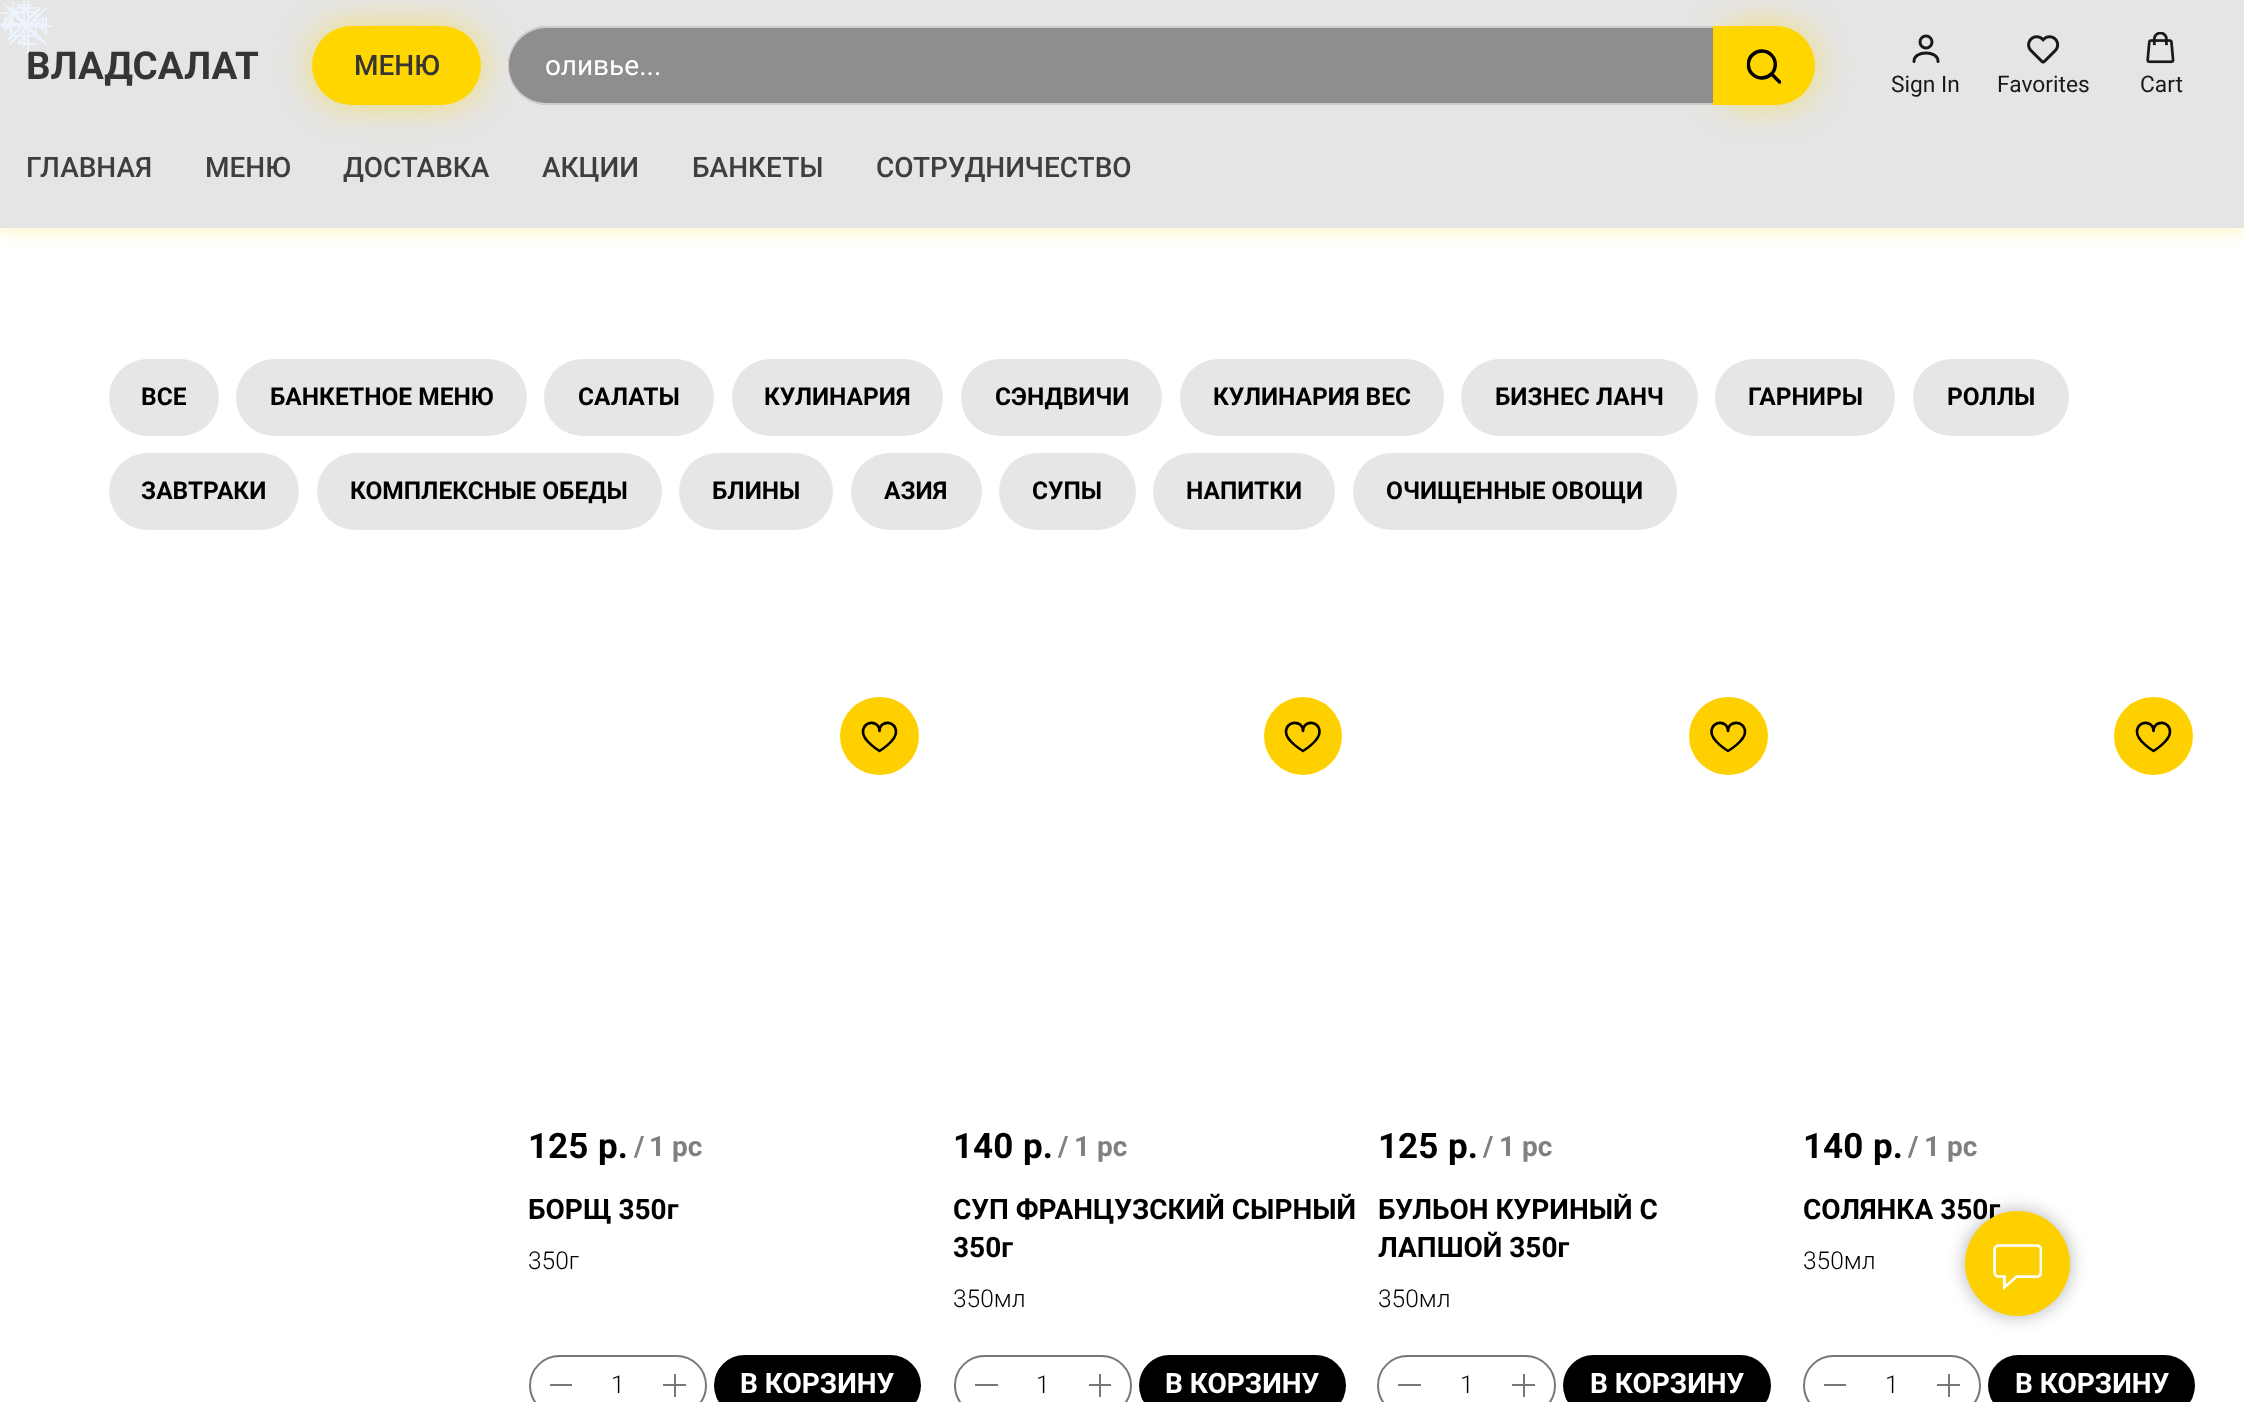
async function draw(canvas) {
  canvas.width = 2244;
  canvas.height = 1402;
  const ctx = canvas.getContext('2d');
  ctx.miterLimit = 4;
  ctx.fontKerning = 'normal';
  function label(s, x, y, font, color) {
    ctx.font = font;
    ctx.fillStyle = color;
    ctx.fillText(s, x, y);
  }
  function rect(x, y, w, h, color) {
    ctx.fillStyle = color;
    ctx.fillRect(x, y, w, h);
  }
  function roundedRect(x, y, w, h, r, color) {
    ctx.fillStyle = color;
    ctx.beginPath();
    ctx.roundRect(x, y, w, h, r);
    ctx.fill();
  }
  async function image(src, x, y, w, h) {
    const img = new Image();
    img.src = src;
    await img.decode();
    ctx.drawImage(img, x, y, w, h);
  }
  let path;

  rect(0, 0, 2244, 1402, '#fff');
  ctx.save();
  path = new Path2D('M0 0H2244V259H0ZM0 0H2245V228H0Z');
  ctx.clip(path, 'evenodd');
  ctx.fillStyle = '#ffd00040';
  ctx.filter = 'blur(9px)';
  ctx.beginPath();
  ctx.rect(0, 4, 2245, 227);
  ctx.fill();
  ctx.filter = 'none';
  ctx.restore();
  rect(0, 0, 2244, 228, '#e2e2e2e6');
  path = new Path2D('M13 2V24M24 13H2M20.5 5L5 20.5M20.5 20.5L5 5');
  ctx.strokeStyle = '#e7eaed';
  ctx.lineWidth = 1.8;
  ctx.lineCap = 'round';
  ctx.lineJoin = 'round';
  ctx.stroke(path);
  path = new Path2D('M24 2V46M46 24H2M40 40L8 8M40 8L8 40ZM12 12H36V36H12Z');
  ctx.strokeStyle = '#eef5ff4f';
  ctx.stroke(path);
  await image('assets/img1.png', 1, 1, 46, 46);
  label('ВЛАДСАЛАТ', 26, 79, 'bold 38.5px Roboto', '#353535');
  path = new Path2D('M28 2V52M52 26H2M46 8L10 44M46 44L10 8M36 8H20M36 44H20M46 34V18M10 34V18');
  ctx.strokeStyle = '#eef5ff3b';
  ctx.stroke(path);
  path = new Path2D('M13 2V24M24 13H2M20.5 5L5 20.5M20.5 20.5L5 5');
  ctx.strokeStyle = '#eef5ff40';
  ctx.stroke(path);
  path = new Path2D('M13 2V24M24 13H2M20.5 5L5 20.5M20.5 20.5L5 5');
  ctx.strokeStyle = '#eef5ff69';
  ctx.stroke(path);
  path = new Path2D('M28 2V52M52 26H2M46 8L10 44M46 44L10 8M36 8H20M36 44H20M46 34V18M10 34V18');
  ctx.strokeStyle = '#eef5ff12';
  ctx.stroke(path);
  path = new Path2D('M24 2V46M46 24H2M40 40L8 8M40 8L8 40ZM12 12H36V36H12Z');
  ctx.strokeStyle = '#eef5ff47';
  ctx.stroke(path);
  path = new Path2D('M24 2V46M46 24H2M40 40L8 8M40 8L8 40ZM12 12H36V36H12Z');
  ctx.strokeStyle = '#eef5ff69';
  ctx.stroke(path);
  await image('assets/img2.png', 4, 4, 40, 40);
  path = new Path2D('M24 2V46M46 24H2M40 40L8 8M40 8L8 40ZM12 12H36V36H12Z');
  ctx.strokeStyle = '#eef5ff6b';
  ctx.stroke(path);
  path = new Path2D('M28 2V52M52 26H2M46 8L10 44M46 44L10 8M36 8H20M36 44H20M46 34V18M10 34V18');
  ctx.strokeStyle = '#eef5ff75';
  ctx.stroke(path);
  path = new Path2D('M28 2V52M52 26H2M46 8L10 44M46 44L10 8M36 8H20M36 44H20M46 34V18M10 34V18');
  ctx.strokeStyle = '#eef5ff4d';
  ctx.stroke(path);
  path = new Path2D('M28 2V52M52 26H2M46 8L10 44M46 44L10 8M36 8H20M36 44H20M46 34V18M10 34V18');
  ctx.strokeStyle = '#eef5ff7d';
  ctx.stroke(path);
  await image('assets/img3.png', 5, 5, 39, 39);
  path = new Path2D('M13 2V24M24 13H2M20.5 5L5 20.5M20.5 20.5L5 5');
  ctx.strokeStyle = '#eef5ff52';
  ctx.stroke(path);
  path = new Path2D('M28 2V52M52 26H2M46 8L10 44M46 44L10 8M36 8H20M36 44H20M46 34V18M10 34V18');
  ctx.strokeStyle = '#eef5ff4a';
  ctx.stroke(path);
  path = new Path2D('M28 2V52M52 26H2M46 8L10 44M46 44L10 8M36 8H20M36 44H20M46 34V18M10 34V18');
  ctx.strokeStyle = '#eef5ff5e';
  ctx.stroke(path);
  ctx.fillStyle = '#ffd60080';
  ctx.filter = 'blur(17.5px)';
  ctx.beginPath();
  ctx.roundRect(312, 26, 169, 79, 39.5);
  ctx.fill();
  ctx.filter = 'none';
  roundedRect(312, 26, 169, 79, 39.5, '#ffd600');
  label('МЕНЮ', 354, 75, '500 28px Roboto', '#353535');
  ctx.fillStyle = '#ffd60080';
  ctx.filter = 'blur(17.5px)';
  ctx.beginPath();
  ctx.roundRect(1713, 26, 102, 79, 39.5);
  ctx.fill();
  ctx.filter = 'none';
  ctx.fillStyle = '#8e8e8e';
  ctx.beginPath();
  ctx.roundRect(508, 26, 1205, 79, [39.5, 0, 0, 39.5]);
  ctx.fill();
  ctx.fillStyle = '#cdcdcd';
  path = new Path2D('M547 26H1713V105H547C525 105 508 87 508 66C508 44 525 26 547 26ZM547 28H1713V103H547C526 103 509 86 509 66C509 45 526 28 547 28Z');
  ctx.fill(path, 'evenodd');
  label('оливье...', 545, 75, '28px Roboto', '#fff');
  ctx.fillStyle = '#ffd600';
  ctx.beginPath();
  ctx.roundRect(1713, 26, 102, 79, [0, 39.5, 39.5, 0]);
  ctx.fill();
  await image('assets/img4.png', 1746, 49, 36, 35);
  ctx.beginPath();
  ctx.arc(1926, 42, 6, 0, 2 * Math.PI);
  ctx.strokeStyle = '#191919';
  ctx.lineWidth = 3;
  ctx.stroke();
  path = new Path2D('M1938 61.5C1938 50 1914 50 1914 61.5');
  ctx.lineJoin = 'miter';
  ctx.stroke(path);
  label('Sign In', 1891, 92, '22.75px Roboto', '#191919');
  await image('assets/img5.png', 2027, 35, 33, 29);
  label('Favorites', 1997, 92, '22.75px Roboto', '#191919');
  await image('assets/img6.png', 2146, 32, 29, 32);
  label('Cart', 2140, 92, '22.75px Roboto', '#191919');
  label('ГЛАВНАЯ', 26, 177, '500 28px Roboto', '#3e3e3e');
  label('МЕНЮ', 205, 177, '500 28px Roboto', '#3e3e3e');
  label('ДОСТАВКА', 343, 177, '500 28px Roboto', '#3e3e3e');
  label('АКЦИИ', 542, 177, '500 28px Roboto', '#3e3e3e');
  label('БАНКЕТЫ', 692, 177, '500 28px Roboto', '#3e3e3e');
  label('СОТРУДНИЧЕСТВО', 876, 177, '500 28px Roboto', '#3e3e3e');
  roundedRect(109, 359, 110, 77, 38.5, '#e6e6e6');
  label('ВСЕ', 141, 405, 'bold 24.5px Roboto', '#000');
  roundedRect(236, 359, 291, 77, 38.5, '#e6e6e6');
  label('БАНКЕТНОЕ МЕНЮ', 270, 405, 'bold 24.5px Roboto', '#000');
  roundedRect(544, 359, 170, 77, 38.5, '#e6e6e6');
  label('САЛАТЫ', 578, 405, 'bold 24.5px Roboto', '#000');
  roundedRect(732, 359, 211, 77, 38.5, '#e6e6e6');
  label('КУЛИНАРИЯ', 764, 405, 'bold 24.5px Roboto', '#000');
  roundedRect(961, 359, 201, 77, 38.5, '#e6e6e6');
  label('СЭНДВИЧИ', 995, 405, 'bold 24.5px Roboto', '#000');
  roundedRect(1180, 359, 264, 77, 38.5, '#e6e6e6');
  label('КУЛИНАРИЯ ВЕС', 1213, 405, 'bold 24.5px Roboto', '#000');
  roundedRect(1461, 359, 237, 77, 38.5, '#e6e6e6');
  label('БИЗНЕС ЛАНЧ', 1495, 405, 'bold 24.5px Roboto', '#000');
  roundedRect(1715, 359, 180, 77, 38.5, '#e6e6e6');
  label('ГАРНИРЫ', 1748, 405, 'bold 24.5px Roboto', '#000');
  roundedRect(1913, 359, 156, 77, 38.5, '#e6e6e6');
  label('РОЛЛЫ', 1947, 405, 'bold 24.5px Roboto', '#000');
  roundedRect(109, 453, 190, 77, 38.5, '#e6e6e6');
  label('ЗАВТРАКИ', 141, 499, 'bold 24.5px Roboto', '#000');
  roundedRect(317, 453, 345, 77, 38.5, '#e6e6e6');
  label('КОМПЛЕКСНЫЕ ОБЕДЫ', 350, 499, 'bold 24.5px Roboto', '#000');
  roundedRect(679, 453, 154, 77, 38.5, '#e6e6e6');
  label('БЛИНЫ', 712, 499, 'bold 24.5px Roboto', '#000');
  roundedRect(851, 453, 131, 77, 38.5, '#e6e6e6');
  label('АЗИЯ', 884, 499, 'bold 24.5px Roboto', '#000');
  roundedRect(999, 453, 137, 77, 38.5, '#e6e6e6');
  label('СУПЫ', 1032, 499, 'bold 24.5px Roboto', '#000');
  roundedRect(1153, 453, 182, 77, 38.5, '#e6e6e6');
  label('НАПИТКИ', 1186, 499, 'bold 24.5px Roboto', '#000');
  roundedRect(1353, 453, 324, 77, 38.5, '#e6e6e6');
  label('ОЧИЩЕННЫЕ ОВОЩИ', 1386, 499, 'bold 24.5px Roboto', '#000');
  roundedRect(840, 697, 79, 78, 39, '#ffd000');
  path = new Path2D('M896 732C896 741 879.5 751 879.5 751C879.5 751 863 741 863 732C863 720 879.5 720 879.5 731C879.5 720 896 720 896 732Z');
  ctx.strokeStyle = '#000';
  ctx.lineWidth = 2.6;
  ctx.lineCap = 'butt';
  ctx.lineJoin = 'round';
  ctx.stroke(path);
  label('125', 528, 1158, 'bold 35px Roboto', '#000');
  label('р.', 598, 1158, 'bold 35px Roboto', '#000');
  label('/', 634, 1156, 'bold 28px Roboto', '#808080');
  label('1 pc', 649, 1156, 'bold 28px Roboto', '#808080');
  label('БОРЩ 350г', 528, 1219, 'bold 28px Roboto', '#000');
  label('350г', 528, 1269, '300 24.5px Roboto', '#000');
  ctx.beginPath();
  ctx.roundRect(530, 1356, 176, 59, 29.5);
  ctx.strokeStyle = '#777';
  ctx.lineWidth = 2;
  ctx.lineJoin = 'miter';
  ctx.stroke();
  rect(550, 1384, 22, 2, '#777');
  label('1', 611, 1393, '300 24.5px Roboto', '#000');
  rect(674, 1374, 2, 23, '#777');
  rect(663, 1384, 23, 2, '#777');
  roundedRect(714, 1355, 207, 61, 30.5, '#000');
  label('В КОРЗИНУ', 740, 1393, 'bold 28px Roboto', '#fff');
  ctx.fillStyle = '#ffd000';
  ctx.beginPath();
  ctx.arc(1303, 736, 39, 0, 2 * Math.PI);
  ctx.fill();
  path = new Path2D('M1319.5 732C1319.5 741 1303 751 1303 751C1303 751 1286 741 1286 732C1286 720 1303 720 1303 731C1303 720 1319.5 720 1319.5 732Z');
  ctx.strokeStyle = '#000';
  ctx.lineWidth = 2.6;
  ctx.lineJoin = 'round';
  ctx.stroke(path);
  label('140', 953, 1158, 'bold 35px Roboto', '#000');
  label('р.', 1023, 1158, 'bold 35px Roboto', '#000');
  label('/', 1058, 1156, 'bold 28px Roboto', '#808080');
  label('1 pc', 1074, 1156, 'bold 28px Roboto', '#808080');
  label('СУП ФРАНЦУЗСКИЙ СЫРНЫЙ', 953, 1219, 'bold 28px Roboto', '#000');
  label('350г', 953, 1257, 'bold 28px Roboto', '#000');
  label('350мл', 953, 1307, '300 24.5px Roboto', '#000');
  ctx.beginPath();
  ctx.roundRect(955, 1356, 176, 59, 29.5);
  ctx.strokeStyle = '#777';
  ctx.lineWidth = 2;
  ctx.lineJoin = 'miter';
  ctx.stroke();
  rect(975, 1384, 23, 2, '#777');
  label('1', 1036, 1393, '300 24.5px Roboto', '#000');
  rect(1099, 1374, 2, 23, '#777');
  rect(1089, 1384, 22, 2, '#777');
  roundedRect(1139, 1355, 207, 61, 30.5, '#000');
  label('В КОРЗИНУ', 1165, 1393, 'bold 28px Roboto', '#fff');
  roundedRect(1689, 697, 79, 78, 39, '#ffd000');
  path = new Path2D('M1745 732C1745 741 1728 751 1728 751C1728 751 1711.5 741 1711.5 732C1711.5 720 1728 720 1728 731C1728 720 1745 720 1745 732Z');
  ctx.strokeStyle = '#000';
  ctx.lineWidth = 2.6;
  ctx.lineJoin = 'round';
  ctx.stroke(path);
  label('125', 1378, 1158, 'bold 35px Roboto', '#000');
  label('р.', 1448, 1158, 'bold 35px Roboto', '#000');
  label('/', 1483, 1156, 'bold 28px Roboto', '#808080');
  label('1 pc', 1499, 1156, 'bold 28px Roboto', '#808080');
  label('БУЛЬОН КУРИНЫЙ С', 1378, 1219, 'bold 28px Roboto', '#000');
  label('ЛАПШОЙ 350г', 1378, 1257, 'bold 28px Roboto', '#000');
  label('350мл', 1378, 1307, '300 24.5px Roboto', '#000');
  ctx.beginPath();
  ctx.roundRect(1378, 1356, 177, 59, 29.5);
  ctx.strokeStyle = '#777';
  ctx.lineWidth = 2;
  ctx.lineJoin = 'miter';
  ctx.stroke();
  rect(1398, 1384, 23, 2, '#777');
  label('1', 1460, 1393, '300 24.5px Roboto', '#000');
  rect(1523, 1374, 2, 23, '#777');
  rect(1512, 1384, 23, 2, '#777');
  roundedRect(1563, 1355, 208, 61, 30.5, '#000');
  label('В КОРЗИНУ', 1590, 1393, 'bold 28px Roboto', '#fff');
  roundedRect(2114, 697, 79, 78, 39, '#ffd000');
  path = new Path2D('M2170 732C2170 741 2153.5 751 2153.5 751C2153.5 751 2137 741 2137 732C2137 720 2153.5 720 2153.5 731C2153.5 720 2170 720 2170 732Z');
  ctx.strokeStyle = '#000';
  ctx.lineWidth = 2.6;
  ctx.lineJoin = 'round';
  ctx.stroke(path);
  label('140', 1803, 1158, 'bold 35px Roboto', '#000');
  label('р.', 1873, 1158, 'bold 35px Roboto', '#000');
  label('/', 1908, 1156, 'bold 28px Roboto', '#808080');
  label('1 pc', 1924, 1156, 'bold 28px Roboto', '#808080');
  label('СОЛЯНКА 350г', 1803, 1219, 'bold 28px Roboto', '#000');
  label('350мл', 1803, 1269, '300 24.5px Roboto', '#000');
  ctx.beginPath();
  ctx.roundRect(1804, 1356, 176, 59, 29.5);
  ctx.strokeStyle = '#777';
  ctx.lineWidth = 2;
  ctx.lineJoin = 'miter';
  ctx.stroke();
  rect(1824, 1384, 22, 2, '#777');
  label('1', 1885, 1393, '300 24.5px Roboto', '#000');
  rect(1948, 1374, 2, 23, '#777');
  rect(1937, 1384, 23, 2, '#777');
  roundedRect(1988, 1355, 207, 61, 30.5, '#000');
  label('В КОРЗИНУ', 2015, 1393, 'bold 28px Roboto', '#fff');
  ctx.fillStyle = '#0000004d';
  ctx.filter = 'blur(9px)';
  ctx.beginPath();
  ctx.roundRect(1965, 1211, 105, 105, 52.5);
  ctx.fill();
  ctx.filter = 'none';
  ctx.fillStyle = '#ffd000';
  ctx.beginPath();
  ctx.arc(2017.5, 1263.5, 52.5, 0, 2 * Math.PI);
  ctx.fill();
  await image('assets/img7.png', 1993, 1244, 49, 47);
}

draw(document.querySelector('canvas'));
